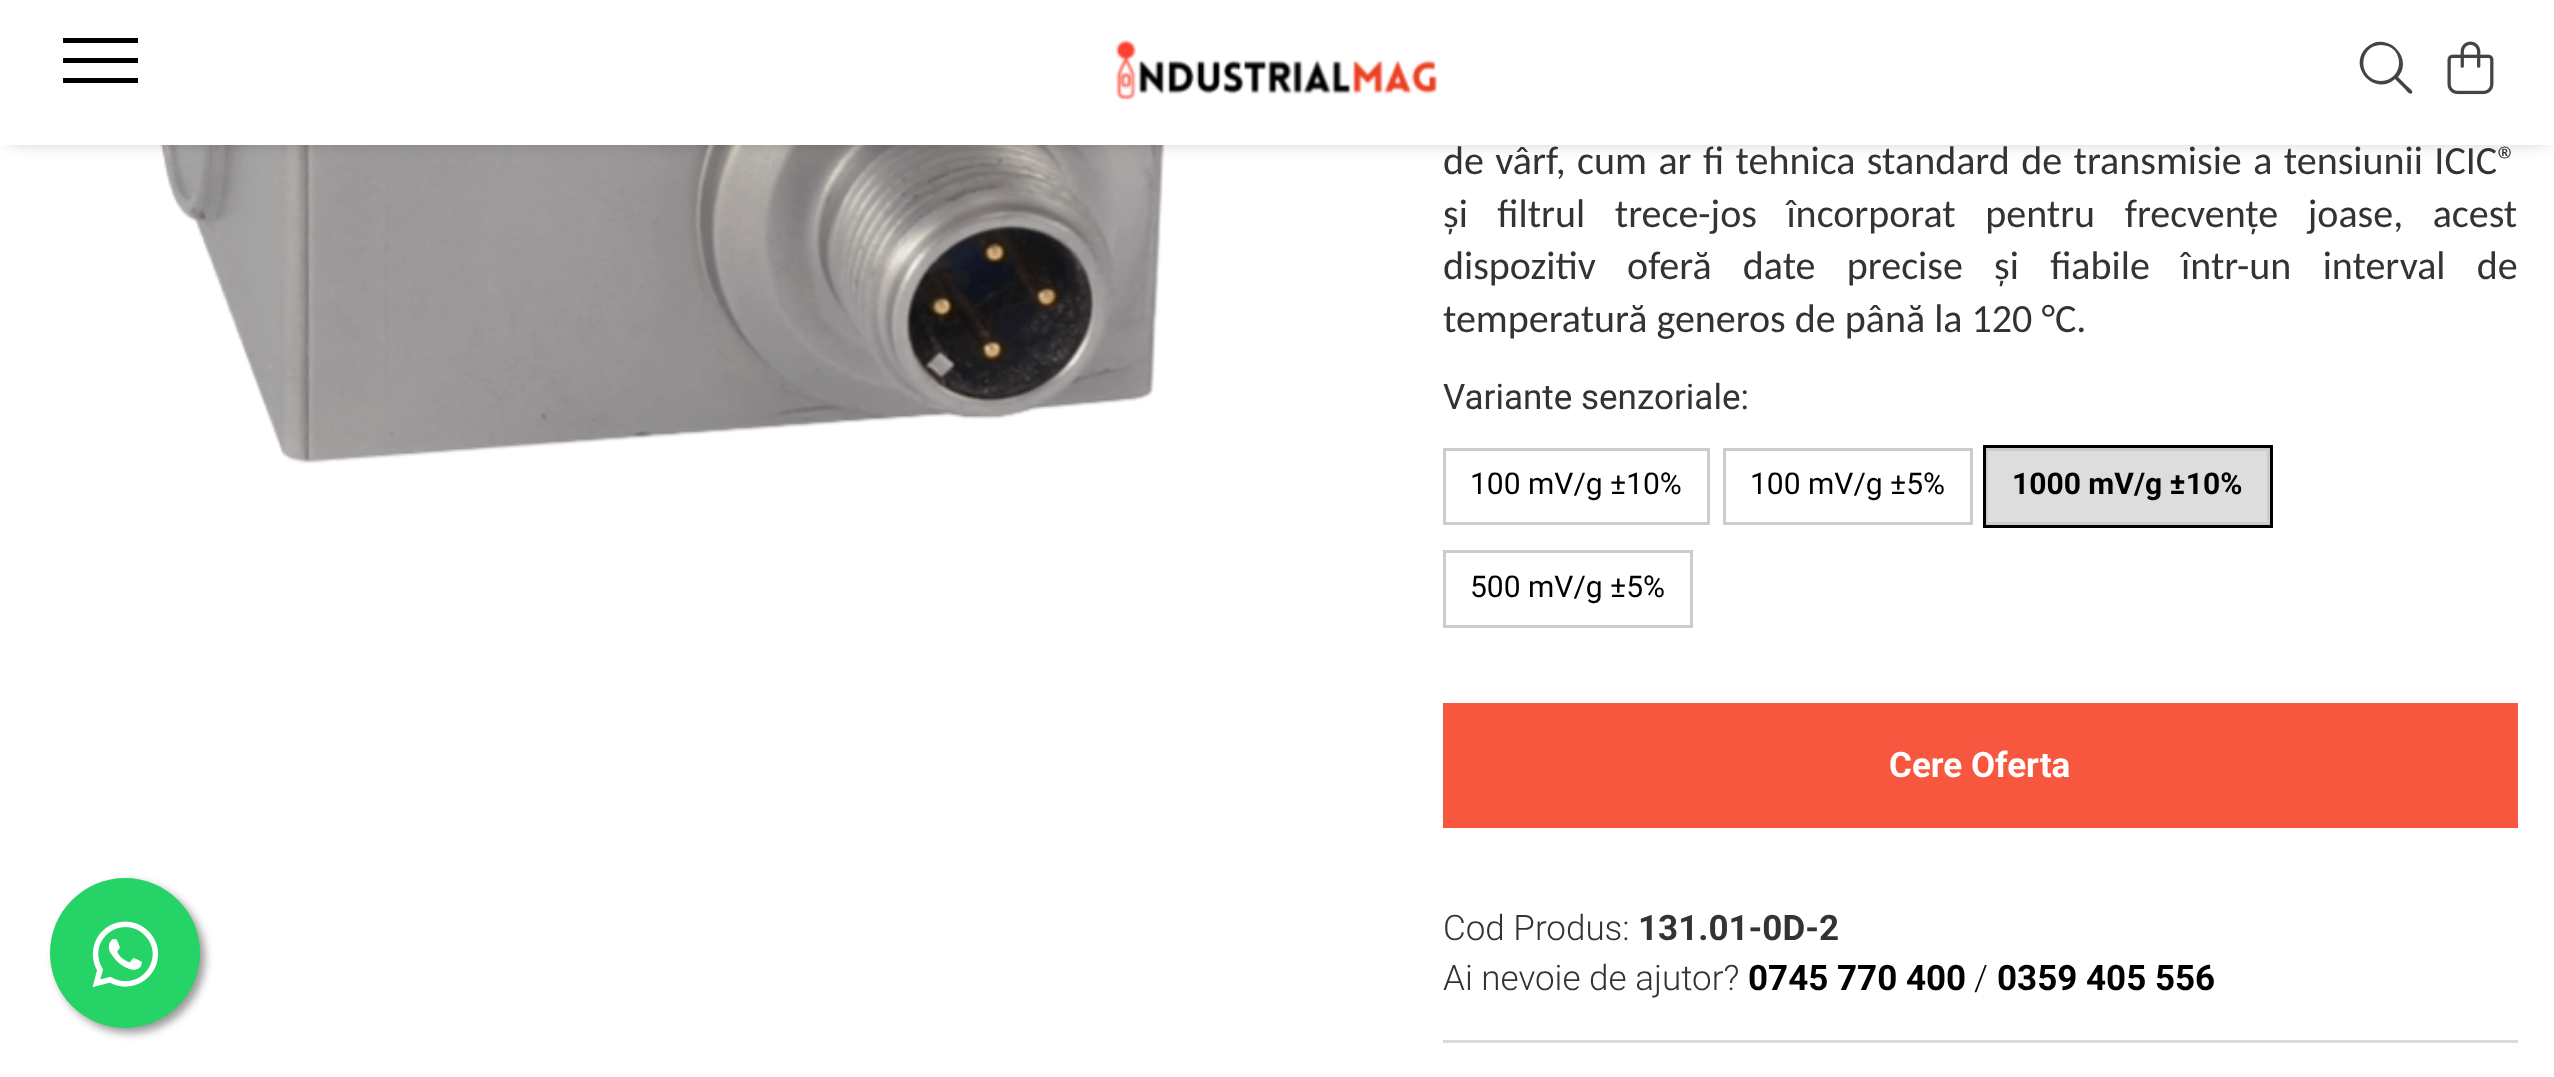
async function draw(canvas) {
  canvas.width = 2554;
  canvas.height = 1077;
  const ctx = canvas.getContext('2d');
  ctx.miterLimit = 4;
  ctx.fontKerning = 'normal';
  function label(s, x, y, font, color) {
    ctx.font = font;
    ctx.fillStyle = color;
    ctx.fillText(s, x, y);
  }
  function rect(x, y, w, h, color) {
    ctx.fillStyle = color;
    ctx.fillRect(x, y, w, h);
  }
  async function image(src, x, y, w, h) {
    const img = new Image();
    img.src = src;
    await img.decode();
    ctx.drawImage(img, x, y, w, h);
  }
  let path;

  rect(0, 0, 2554, 1077, '#fff');
  ctx.fillStyle = '#999';
  ctx.filter = 'blur(4px)';
  ctx.beginPath();
  ctx.roundRect(55, 883, 150, 150, 75);
  ctx.fill();
  ctx.filter = 'none';
  ctx.fillStyle = '#25d366';
  ctx.beginPath();
  ctx.arc(125, 953, 75, 0, 2 * Math.PI);
  ctx.fill();
  await image('assets/img1.png', 92, 921, 67, 67);
  await image('assets/img4.png', 158, 145, 1010, 319);
  ctx.fillStyle = '#0000004d';
  ctx.filter = 'blur(9px)';
  ctx.beginPath();
  ctx.rect(10, 15, 2535, 125);
  ctx.fill();
  ctx.filter = 'none';
  rect(0, 0, 2554, 145, '#fff');
  rect(63, 58, 75, 5, '#000');
  rect(63, 38, 75, 5, '#000');
  rect(63, 78, 75, 5, '#000');
  await image('assets/img2.png', 1115, 40, 322, 61);
  ctx.fillStyle = '#444';
  path = new Path2D('M2398 77C2415 57 2385 29 2366 48C2347 67 2375 97 2395 79L2405 89C2405 89 2410 96 2412 93C2414 91 2408 87 2407 86ZM2381 81C2357 80 2358 45 2381 45C2405 45 2405 80 2381 81Z');
  ctx.fill(path);
  await image('assets/img3.png', 2447, 41, 47, 54);
  ctx.wordSpacing = '2.4px';
  label('de vârf, cum ar fi tehnica standard de transmisie a tensiunii ICIC®', 1443, 174, '40px Carlito', '#333');
  ctx.wordSpacing = '20.5px';
  label('și filtrul trece-jos încorporat pentru frecvențe joase, acest', 1443, 227, '40px Carlito', '#333');
  ctx.wordSpacing = '22.25px';
  label('dispozitiv oferă date precise și fiabile într-un interval de', 1443, 279, '40px Carlito', '#333');
  ctx.wordSpacing = '0px';
  label('temperatură generos de până la 120 °C.', 1443, 332, '40px Carlito', '#333');
  label('Variante senzoriale:', 1443, 409, '35px Roboto', '#333');
  ctx.strokeStyle = '#ccc';
  ctx.lineWidth = 3;
  ctx.strokeRect(1444.5, 449.5, 264, 74);
  label('100 mV/g ±10%', 1470, 494, '30px Roboto', '#000');
  ctx.strokeRect(1724.5, 449.5, 247, 74);
  label('100 mV/g ±5%', 1750, 494, '30px Roboto', '#000');
  ctx.fillStyle = '#ddd';
  ctx.beginPath();
  ctx.rect(1986.5, 449.5, 282, 74);
  ctx.fill();
  ctx.stroke();
  ctx.strokeStyle = '#000';
  ctx.strokeRect(1984.5, 446.5, 287, 80);
  label('1000 mV/g ±10%', 2012, 494, 'bold 30px Roboto', '#000');
  ctx.strokeStyle = '#ccc';
  ctx.strokeRect(1444.5, 551.5, 247, 75);
  label('500 mV/g ±5%', 1470, 597, '30px Roboto', '#000');
  rect(1443, 703, 1075, 125, '#f7573e');
  label('Cere Oferta', 1889, 777, 'bold 35px Roboto', '#fff');
  label('Cod Produs:', 1443, 940, '300 35px Roboto', '#333');
  label('131.01-0D-2', 1638, 940, 'bold 35px Roboto', '#333');
  label('Ai nevoie de ajutor?', 1443, 990, '300 35px Roboto', '#333');
  label('0745 770 400', 1748, 990, 'bold 35px Roboto', '#000');
  label('/', 1974, 990, '300 35px Roboto', '#000');
  label('0359 405 556', 1997, 990, 'bold 35px Roboto', '#000');
  rect(1443, 1040, 1075, 3, '#dbdbdb');
}

draw(document.querySelector('canvas'));
